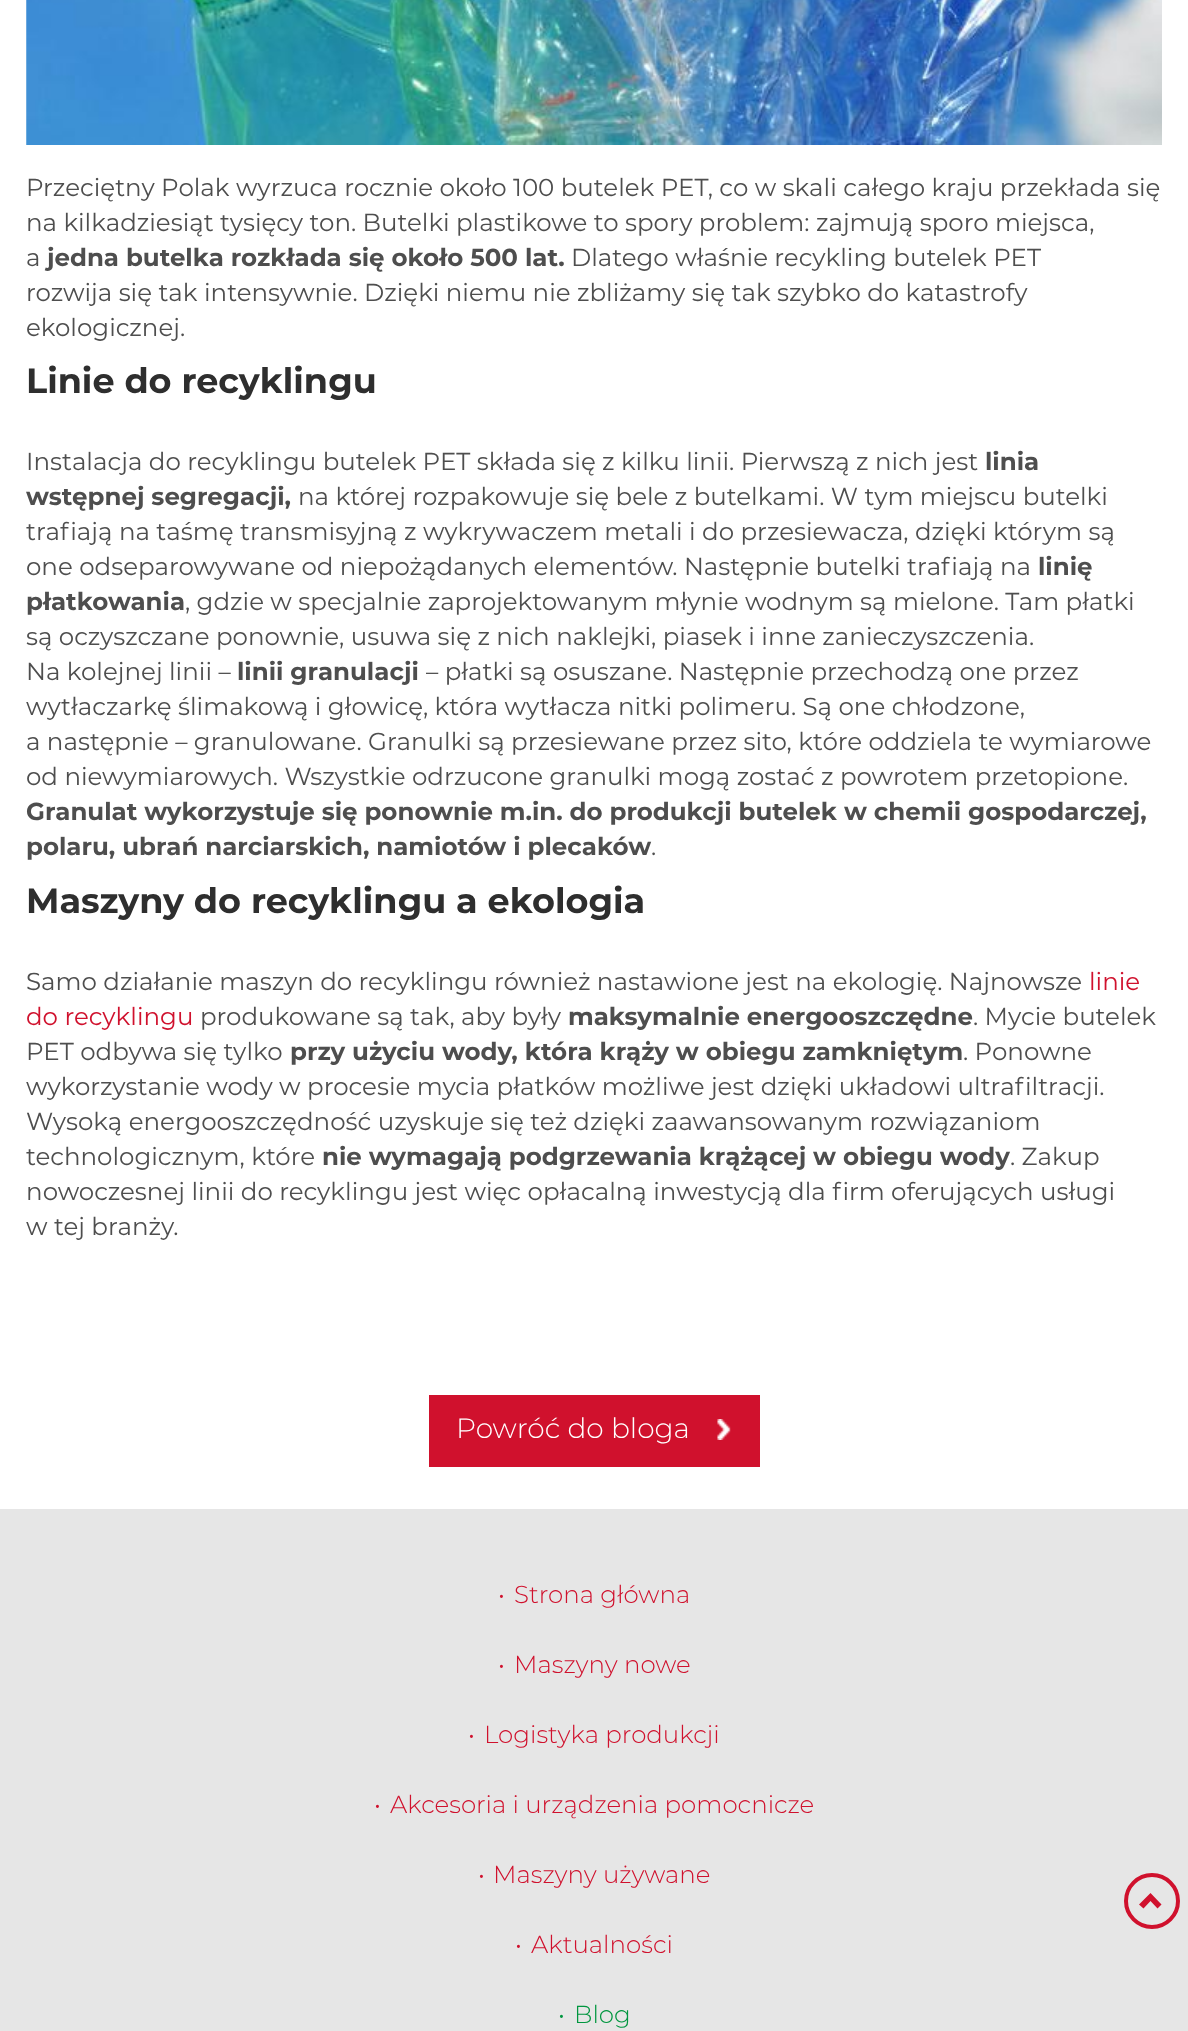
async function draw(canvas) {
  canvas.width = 1188;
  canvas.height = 2031;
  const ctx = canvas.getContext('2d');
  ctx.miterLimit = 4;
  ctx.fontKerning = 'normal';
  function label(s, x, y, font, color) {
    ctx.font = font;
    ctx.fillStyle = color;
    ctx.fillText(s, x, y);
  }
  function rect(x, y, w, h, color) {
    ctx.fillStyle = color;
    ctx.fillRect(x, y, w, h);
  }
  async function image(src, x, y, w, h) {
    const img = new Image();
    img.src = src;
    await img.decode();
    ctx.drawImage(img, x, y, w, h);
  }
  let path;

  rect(0, 0, 1188, 2031, '#fff');
  await image('assets/img1.png', 26, 0, 1136, 145);
  label('Przeciętny Polak wyrzuca rocznie około 100 butelek PET, co w skali całego kraju przekłada się', 26, 196, '24.5px Montserrat', '#4e4e4e');
  label('na kilkadziesiąt tysięcy ton. Butelki plastikowe to spory problem: zajmują sporo miejsca,', 26, 231, '24.5px Montserrat', '#4e4e4e');
  label('a', 26, 266, '24.5px Montserrat', '#4e4e4e');
  label('jedna butelka rozkłada się około 500 lat.', 47, 266, 'bold 24.5px Montserrat', '#4e4e4e');
  label('Dlatego właśnie recykling butelek PET', 571, 266, '24.5px Montserrat', '#4e4e4e');
  label('rozwija się tak intensywnie. Dzięki niemu nie zbliżamy się tak szybko do katastrofy', 26, 301, '24.5px Montserrat', '#4e4e4e');
  label('ekologicznej.', 26, 336, '24.5px Montserrat', '#4e4e4e');
  label('Linie do recyklingu', 26, 393, 'bold 35px Montserrat', '#2e2e2e');
  label('Instalacja do recyklingu butelek PET składa się z kilku linii. Pierwszą z nich jest', 26, 470, '24.5px Montserrat', '#4e4e4e');
  label('linia', 985, 470, 'bold 24.5px Montserrat', '#4e4e4e');
  label('wstępnej segregacji,', 26, 505, 'bold 24.5px Montserrat', '#4e4e4e');
  label('na której rozpakowuje się bele z butelkami. W tym miejscu butelki', 298, 505, '24.5px Montserrat', '#4e4e4e');
  label('trafiają na taśmę transmisyjną z wykrywaczem metali i do przesiewacza, dzięki którym są', 26, 540, '24.5px Montserrat', '#4e4e4e');
  label('one odseparowywane od niepożądanych elementów. Następnie butelki trafiają na', 26, 575, '24.5px Montserrat', '#4e4e4e');
  label('linię', 1038, 575, 'bold 24.5px Montserrat', '#4e4e4e');
  label('płatkowania', 26, 610, 'bold 24.5px Montserrat', '#4e4e4e');
  label(', gdzie w specjalnie zaprojektowanym młynie wodnym są mielone. Tam płatki', 185, 610, '24.5px Montserrat', '#4e4e4e');
  label('są oczyszczane ponownie, usuwa się z nich naklejki, piasek i inne zanieczyszczenia.', 26, 645, '24.5px Montserrat', '#4e4e4e');
  label('Na kolejnej linii –', 26, 680, '24.5px Montserrat', '#4e4e4e');
  label('linii granulacji', 237, 680, 'bold 24.5px Montserrat', '#4e4e4e');
  label('– płatki są osuszane. Następnie przechodzą one przez', 426, 680, '24.5px Montserrat', '#4e4e4e');
  label('wytłaczarkę ślimakową i głowicę, która wytłacza nitki polimeru. Są one chłodzone,', 26, 715, '24.5px Montserrat', '#4e4e4e');
  label('a następnie – granulowane. Granulki są przesiewane przez sito, które oddziela te wymiarowe', 26, 750, '24.5px Montserrat', '#4e4e4e');
  label('od niewymiarowych. Wszystkie odrzucone granulki mogą zostać z powrotem przetopione.', 26, 785, '24.5px Montserrat', '#4e4e4e');
  label('Granulat wykorzystuje się ponownie m.in. do produkcji butelek w chemii gospodarczej,', 26, 820, 'bold 24.5px Montserrat', '#4e4e4e');
  label('polaru, ubrań narciarskich, namiotów i plecaków', 26, 855, 'bold 24.5px Montserrat', '#4e4e4e');
  label('.', 651, 855, '24.5px Montserrat', '#4e4e4e');
  label('Maszyny do recyklingu a ekologia', 26, 913, 'bold 35px Montserrat', '#2e2e2e');
  label('Samo działanie maszyn do recyklingu również nastawione jest na ekologię. Najnowsze', 26, 990, '24.5px Montserrat', '#4e4e4e');
  label('linie', 1089, 990, '24.5px Montserrat', '#d0112d');
  label('do recyklingu', 26, 1025, '24.5px Montserrat', '#d0112d');
  label('produkowane są tak, aby były', 200, 1025, '24.5px Montserrat', '#4e4e4e');
  label('maksymalnie energooszczędne', 568, 1025, 'bold 24.5px Montserrat', '#4e4e4e');
  label('. Mycie butelek', 973, 1025, '24.5px Montserrat', '#4e4e4e');
  label('PET odbywa się tylko', 26, 1060, '24.5px Montserrat', '#4e4e4e');
  label('przy użyciu wody, która krąży w obiegu zamkniętym', 290, 1060, 'bold 24.5px Montserrat', '#4e4e4e');
  label('. Ponowne', 963, 1060, '24.5px Montserrat', '#4e4e4e');
  label('wykorzystanie wody w procesie mycia płatków możliwe jest dzięki układowi ultrafiltracji.', 26, 1095, '24.5px Montserrat', '#4e4e4e');
  label('Wysoką energooszczędność uzyskuje się też dzięki zaawansowanym rozwiązaniom', 26, 1130, '24.5px Montserrat', '#4e4e4e');
  label('technologicznym, które', 26, 1165, '24.5px Montserrat', '#4e4e4e');
  label('nie wymagają podgrzewania krążącej w obiegu wody', 322, 1165, 'bold 24.5px Montserrat', '#4e4e4e');
  label('. Zakup', 1010, 1165, '24.5px Montserrat', '#4e4e4e');
  label('nowoczesnej linii do recyklingu jest więc opłacalną inwestycją dla firm oferujących usługi', 26, 1200, '24.5px Montserrat', '#4e4e4e');
  label('w tej branży.', 26, 1235, '24.5px Montserrat', '#4e4e4e');
  rect(429, 1395, 331, 72, '#d0112d');
  await image('assets/img2.png', 717, 1419, 14, 21);
  label('Powróć do bloga', 456, 1438, '300 28px Montserrat', '#fff');
  rect(0, 1509, 1188, 522, '#e6e6e6');
  label('•', 498, 1603, '300 24.5px Montserrat', '#d0112d');
  label('Strona główna', 514, 1603, '300 24.5px Montserrat', '#d0112d');
  label('•', 498, 1673, '300 24.5px Montserrat', '#d0112d');
  label('Maszyny nowe', 514, 1673, '300 24.5px Montserrat', '#d0112d');
  label('•', 468, 1743, '300 24.5px Montserrat', '#d0112d');
  label('Logistyka produkcji', 484, 1743, '300 24.5px Montserrat', '#d0112d');
  label('•', 374, 1813, '300 24.5px Montserrat', '#d0112d');
  label('Akcesoria i urządzenia pomocnicze', 390, 1813, '300 24.5px Montserrat', '#d0112d');
  label('•', 478, 1883, '300 24.5px Montserrat', '#d0112d');
  label('Maszyny używane', 493, 1883, '300 24.5px Montserrat', '#d0112d');
  label('•', 515, 1953, '300 24.5px Montserrat', '#d0112d');
  label('Aktualności', 531, 1953, '300 24.5px Montserrat', '#d0112d');
  label('•', 558, 2023, '300 24.5px Montserrat', '#00963f');
  label('Blog', 574, 2023, '300 24.5px Montserrat', '#00963f');
  ctx.beginPath();
  ctx.arc(1152, 1901, 26, 0, 2 * Math.PI);
  ctx.strokeStyle = '#d0112d';
  ctx.lineWidth = 4;
  ctx.stroke();
  ctx.fillStyle = '#d0112d';
  path = new Path2D('M1161.5 1904.5L1157.5 1908.5L1150.5 1901L1143.5 1908.5L1139 1904.5L1150.5 1893Z');
  ctx.fill(path);
}

draw(document.querySelector('canvas'));
